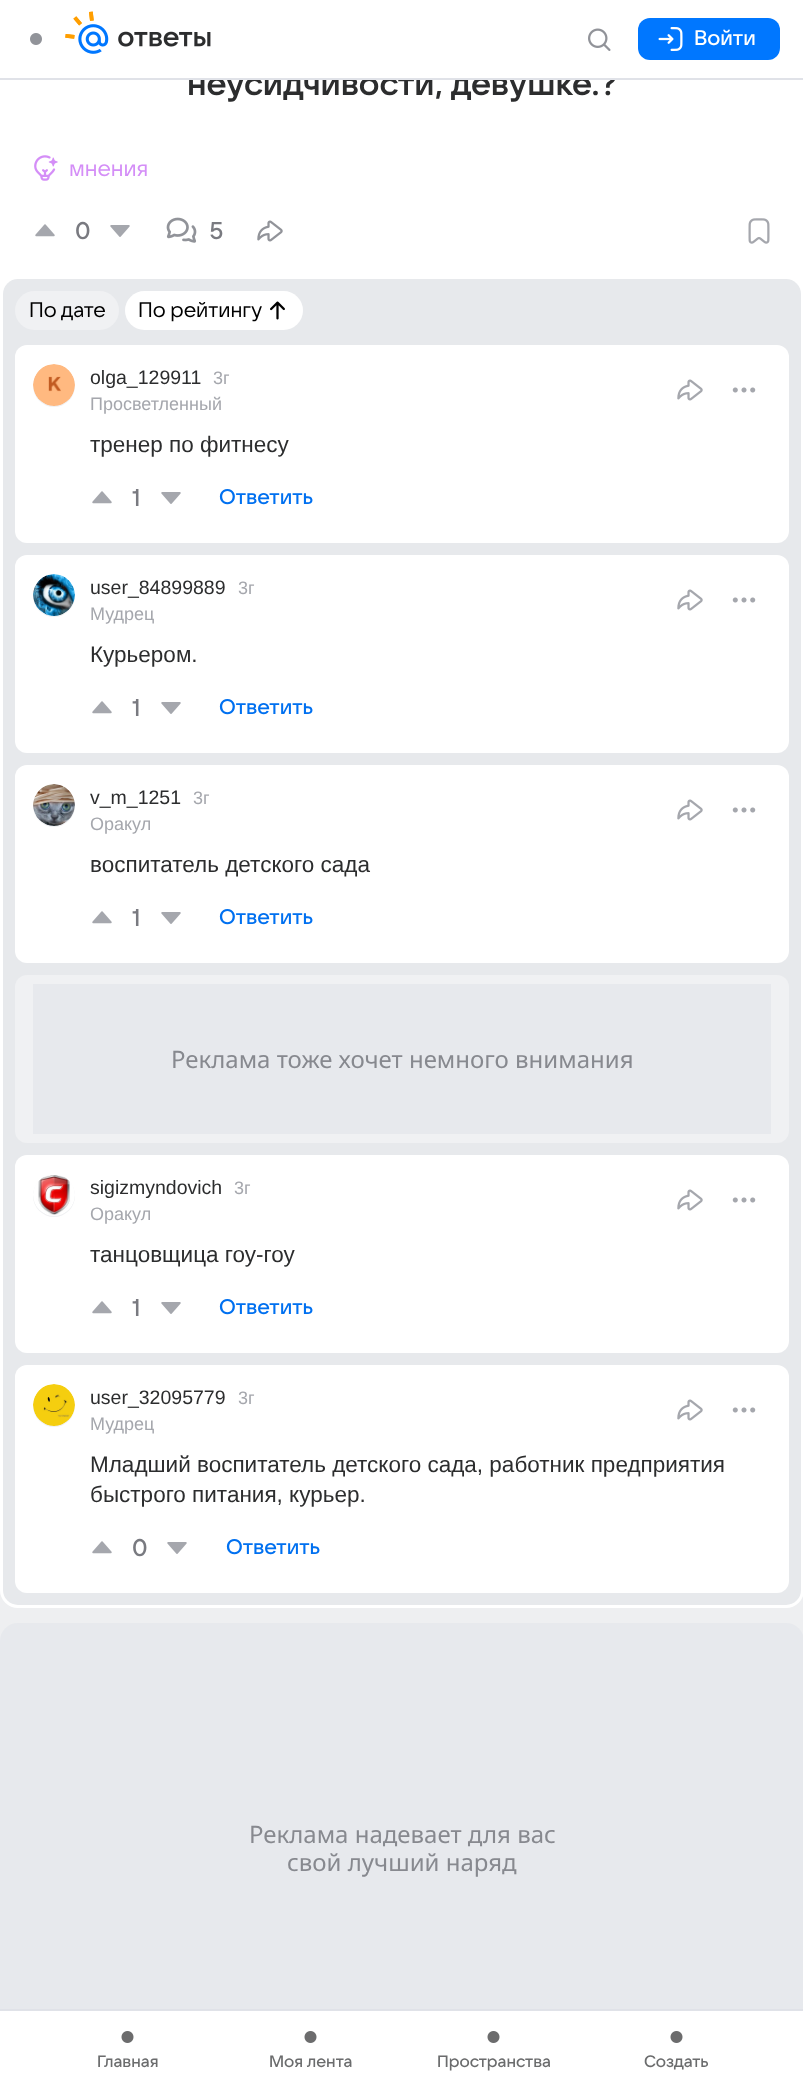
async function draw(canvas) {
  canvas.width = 803;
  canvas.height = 2087;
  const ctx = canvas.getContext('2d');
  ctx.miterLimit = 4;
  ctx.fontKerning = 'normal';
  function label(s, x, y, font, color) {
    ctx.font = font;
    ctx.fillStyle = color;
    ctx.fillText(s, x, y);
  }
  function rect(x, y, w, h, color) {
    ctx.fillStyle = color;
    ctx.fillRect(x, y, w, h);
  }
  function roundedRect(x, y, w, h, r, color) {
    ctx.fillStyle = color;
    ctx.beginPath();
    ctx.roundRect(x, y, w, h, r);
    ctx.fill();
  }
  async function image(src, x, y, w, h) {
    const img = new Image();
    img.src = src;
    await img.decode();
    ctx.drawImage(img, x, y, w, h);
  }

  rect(0, 0, 803, 2087, '#eeeff1');
  roundedRect(0, -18, 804, 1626, 18, '#fff');
  label('неусидчивости, девушке.?', 187, 95, '600 33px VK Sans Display', '#2c2d2e');
  rect(189, 71, 427, 7, '#fff');
  rect(0, 78, 803, 2, '#e0e2e8');
  await image('assets/img1.png', 30, 33, 12, 12);
  await image('assets/img2.png', 65, 11, 146, 43);
  await image('assets/img3.png', 588, 28, 23, 23);
  roundedRect(638, 18, 142, 42, 12, '#07f');
  await image('assets/img4.png', 658, 27, 25, 24);
  label('Войти', 694, 45, '500 21px VK Sans Display', '#fff');
  await image('assets/img5.png', 34, 155, 24, 26);
  label('мнения', 69, 176, '22.5px VK Sans Display', '#d48ef7');
  await image('assets/img6.png', 35, 224, 20, 13);
  label('0', 75, 239, '500 24px VK Sans Display', '#797a80');
  await image('assets/img7.png', 110, 225, 20, 12);
  await image('assets/img8.png', 166, 217, 31, 26);
  label('5', 209, 239, '500 24px VK Sans Display', '#797a80');
  await image('assets/img9.png', 257, 220, 26, 22);
  await image('assets/img10.png', 748, 218, 22, 26);
  roundedRect(3, 279, 798, 1326, 15, '#e7e9ec');
  roundedRect(15, 291, 104, 39, 19.5, '#f0f1f3');
  label('По дате', 29, 317, '21px VK Sans Display', '#000');
  roundedRect(125, 291, 178, 39, 19.5, '#fff');
  label('По рейтингу', 138, 317, '21px VK Sans Display', '#000');
  await image('assets/img11.png', 270, 301, 15, 19);
  roundedRect(15, 345, 774, 198, 12, '#fff');
  ctx.fillStyle = '#f0f1f3';
  ctx.beginPath();
  ctx.arc(54, 386, 21, 0, 2 * Math.PI);
  ctx.fill();
  await image('assets/img12.png', 33, 364, 42, 42);
  label('olga_129911', 90, 384, '19.5px Liberation Sans', '#2c2d2e');
  label('Просветленный', 90, 410, '18px Liberation Sans', '#a5a7ad');
  label('3г', 213, 384, '18px Liberation Sans', '#a5a7ad');
  await image('assets/img13.png', 677, 379, 26, 22);
  await image('assets/img14.png', 732, 387, 24, 6);
  label('тренер по фитнесу', 90, 452, '22.5px Liberation Sans', '#2c2d2e');
  await image('assets/img6.png', 92, 491, 20, 13);
  label('1', 132, 506, '500 24px VK Sans Display', '#797a80');
  await image('assets/img7.png', 161, 492, 20, 12);
  label('Ответить', 219, 504, '500 21px VK Sans Display', '#0070f0');
  roundedRect(15, 555, 774, 198, 12, '#fff');
  ctx.fillStyle = '#f0f1f3';
  ctx.beginPath();
  ctx.arc(54, 596, 21, 0, 2 * Math.PI);
  ctx.fill();
  await image('assets/img15.png', 33, 574, 42, 42);
  label('user_84899889', 90, 594, '19.5px Liberation Sans', '#2c2d2e');
  label('Мудрец', 90, 620, '18px Liberation Sans', '#a5a7ad');
  label('3г', 238, 594, '18px Liberation Sans', '#a5a7ad');
  await image('assets/img13.png', 677, 589, 26, 22);
  await image('assets/img14.png', 732, 597, 24, 6);
  label('Курьером.', 90, 662, '22.5px Liberation Sans', '#2c2d2e');
  await image('assets/img6.png', 92, 701, 20, 13);
  label('1', 132, 716, '500 24px VK Sans Display', '#797a80');
  await image('assets/img7.png', 161, 702, 20, 12);
  label('Ответить', 219, 714, '500 21px VK Sans Display', '#0070f0');
  roundedRect(15, 765, 774, 198, 12, '#fff');
  ctx.fillStyle = '#f0f1f3';
  ctx.beginPath();
  ctx.arc(54, 806, 21, 0, 2 * Math.PI);
  ctx.fill();
  await image('assets/img16.png', 33, 784, 42, 42);
  label('v_m_1251', 90, 804, '19.5px Liberation Sans', '#2c2d2e');
  label('Оракул', 90, 830, '18px Liberation Sans', '#a5a7ad');
  label('3г', 193, 804, '18px Liberation Sans', '#a5a7ad');
  await image('assets/img13.png', 677, 799, 26, 22);
  await image('assets/img14.png', 732, 807, 24, 6);
  label('воспитатель детского сада', 90, 872, '22.5px Liberation Sans', '#2c2d2e');
  await image('assets/img6.png', 92, 911, 20, 13);
  label('1', 132, 926, '500 24px VK Sans Display', '#797a80');
  await image('assets/img7.png', 161, 912, 20, 12);
  label('Ответить', 219, 924, '500 21px VK Sans Display', '#0070f0');
  roundedRect(15, 975, 774, 168, 12, '#f0f1f3');
  rect(33, 984, 738, 150, '#e7e9ed');
  label('Реклама тоже хочет немного внимания', 171, 1068, '24px Noto Sans', '#87898f');
  roundedRect(15, 1155, 774, 198, 12, '#fff');
  ctx.fillStyle = '#f0f1f3';
  ctx.beginPath();
  ctx.arc(54, 1196, 21, 0, 2 * Math.PI);
  ctx.fill();
  await image('assets/img17.png', 33, 1175, 42, 41);
  label('sigizmyndovich', 90, 1194, '19.5px Liberation Sans', '#2c2d2e');
  label('Оракул', 90, 1220, '18px Liberation Sans', '#a5a7ad');
  label('3г', 234, 1194, '18px Liberation Sans', '#a5a7ad');
  await image('assets/img13.png', 677, 1189, 26, 22);
  await image('assets/img14.png', 732, 1197, 24, 6);
  label('танцовщица гоу-гоу', 90, 1262, '22.5px Liberation Sans', '#2c2d2e');
  await image('assets/img6.png', 92, 1301, 20, 13);
  label('1', 132, 1316, '500 24px VK Sans Display', '#797a80');
  await image('assets/img7.png', 161, 1302, 20, 12);
  label('Ответить', 219, 1314, '500 21px VK Sans Display', '#0070f0');
  roundedRect(15, 1365, 774, 228, 12, '#fff');
  ctx.fillStyle = '#f0f1f3';
  ctx.beginPath();
  ctx.arc(54, 1406, 21, 0, 2 * Math.PI);
  ctx.fill();
  await image('assets/img18.png', 33, 1384, 42, 42);
  label('user_32095779', 90, 1404, '19.5px Liberation Sans', '#2c2d2e');
  label('Мудрец', 90, 1430, '18px Liberation Sans', '#a5a7ad');
  label('3г', 238, 1404, '18px Liberation Sans', '#a5a7ad');
  await image('assets/img13.png', 677, 1399, 26, 22);
  await image('assets/img14.png', 732, 1407, 24, 6);
  label('Младший воспитатель детского сада, работник предприятия', 90, 1472, '22.5px Liberation Sans', '#2c2d2e');
  label('быстрого питания, курьер.', 90, 1502, '22.5px Liberation Sans', '#2c2d2e');
  await image('assets/img6.png', 92, 1541, 20, 13);
  label('0', 132, 1556, '500 24px VK Sans Display', '#797a80');
  await image('assets/img7.png', 167, 1542, 20, 12);
  label('Ответить', 226, 1554, '500 21px VK Sans Display', '#0070f0');
  roundedRect(0, 1623, 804, 450, 18, '#e7e9ed');
  label('Реклама надевает для вас', 249, 1843, '24px Noto Sans', '#87898f');
  label('свой лучший наряд', 287, 1871, '24px Noto Sans', '#87898f');
  rect(0, 2011, 803, 76, '#fff');
  rect(0, 2009, 803, 2, '#e0e2e8');
  await image('assets/img19.png', 121, 2031, 13, 12);
  label('Главная', 97, 2067, '500 16.5px VK Sans Display', '#6b6c6d');
  await image('assets/img19.png', 304, 2031, 13, 12);
  label('Моя лента', 269, 2067, '500 16.5px VK Sans Display', '#6b6c6d');
  await image('assets/img19.png', 487, 2031, 13, 12);
  label('Пространства', 437, 2067, '500 16.5px VK Sans Display', '#6b6c6d');
  await image('assets/img19.png', 670, 2031, 13, 12);
  label('Создать', 644, 2067, '500 16.5px VK Sans Display', '#6b6c6d');
}

draw(document.querySelector('canvas'));
